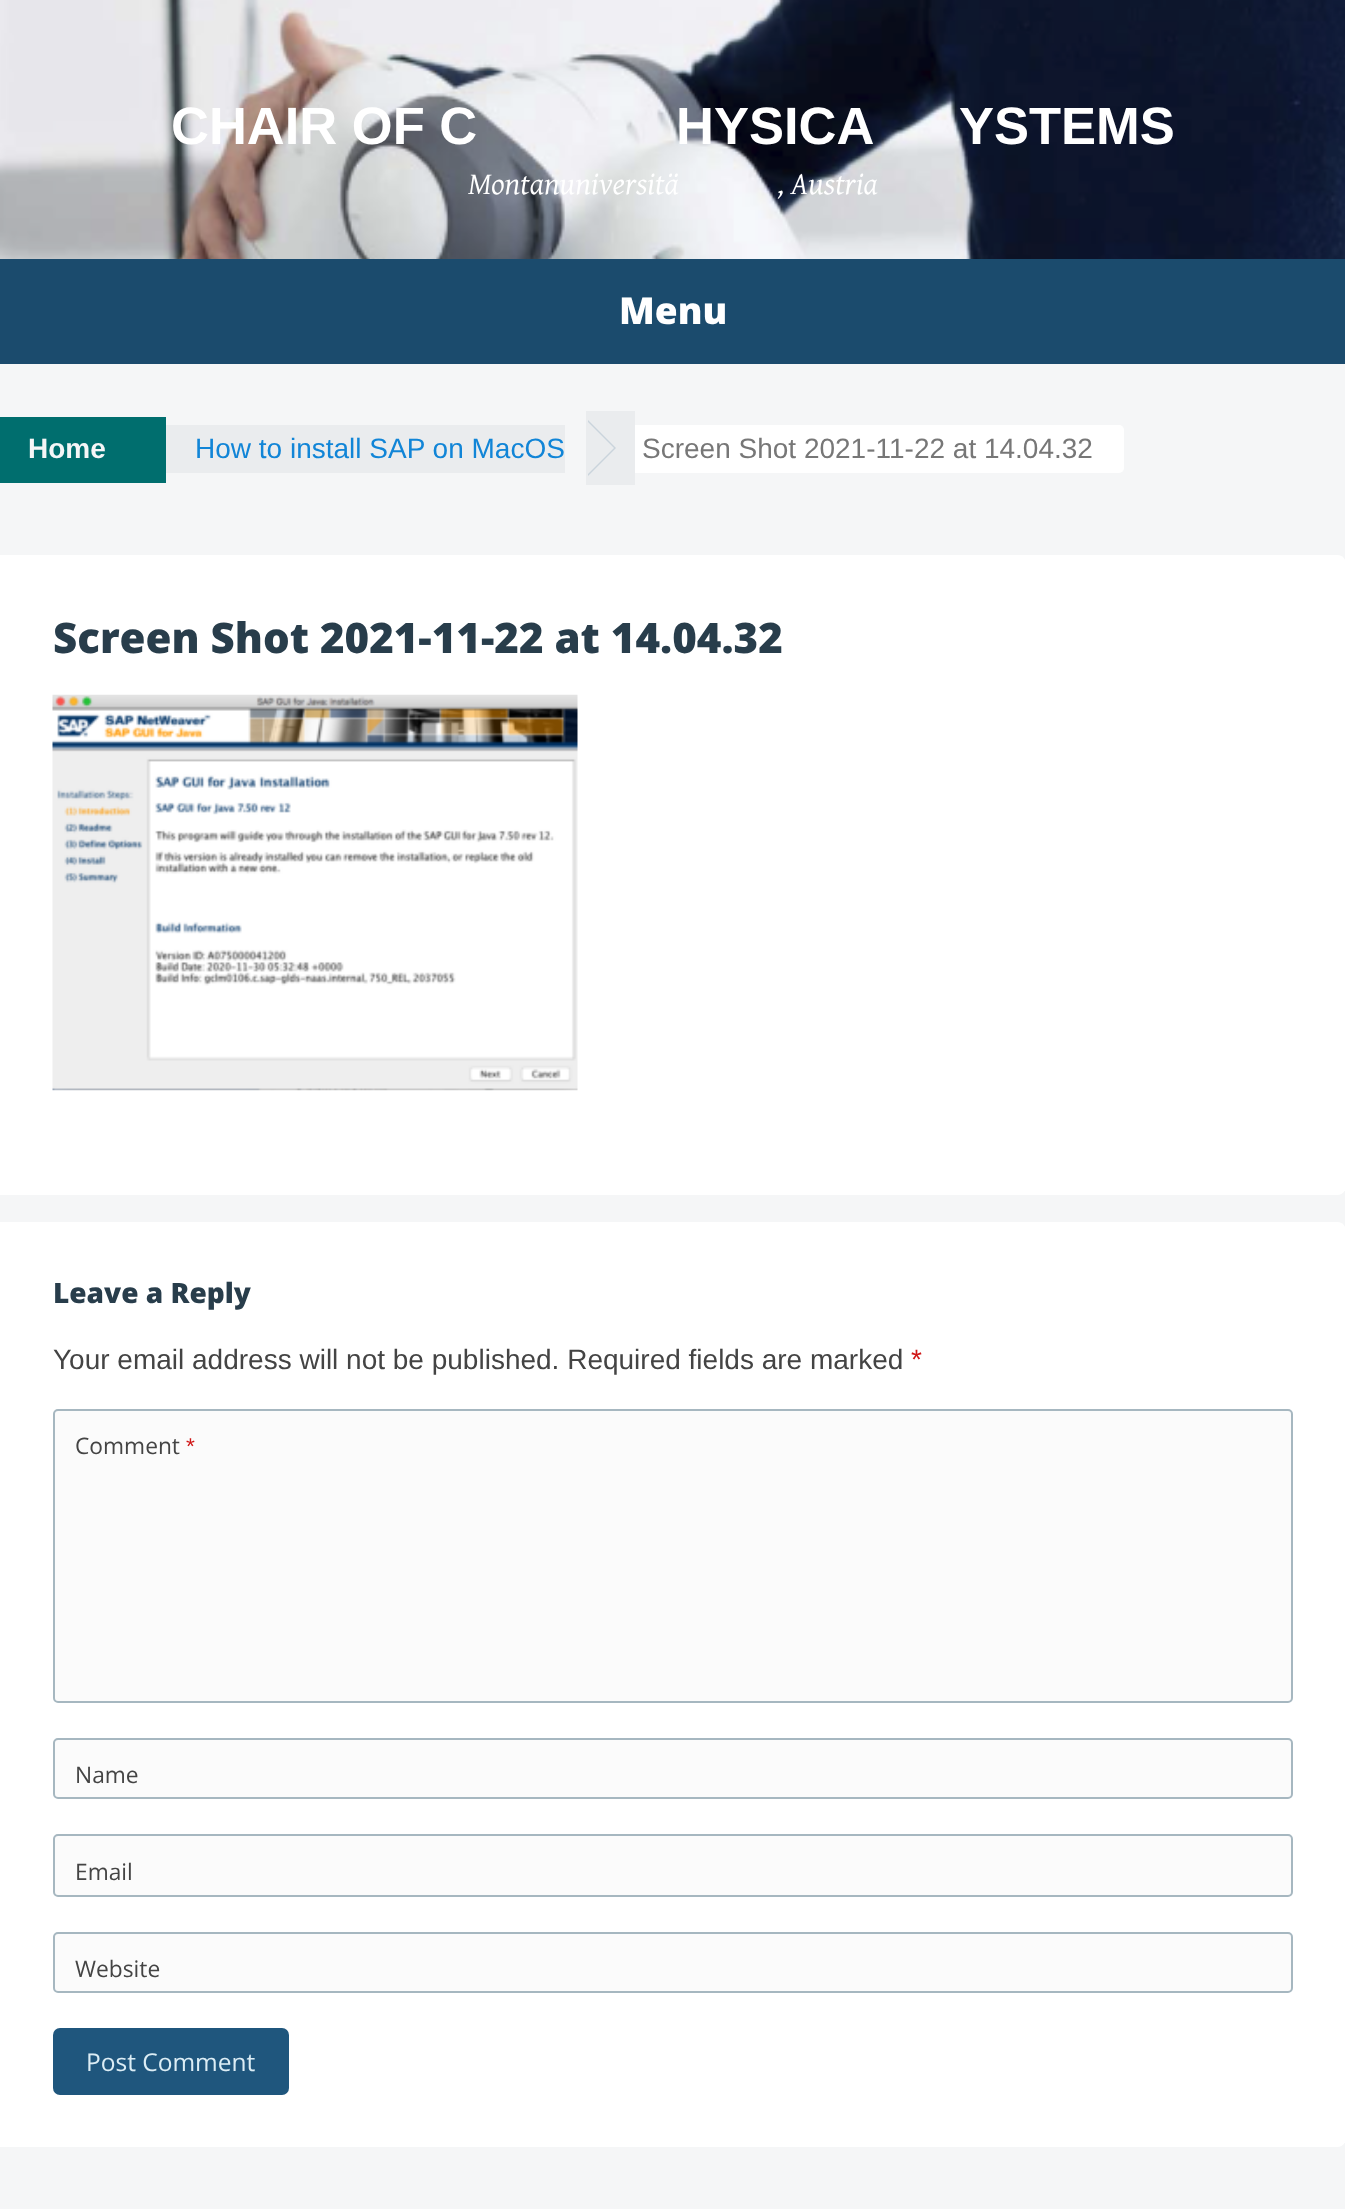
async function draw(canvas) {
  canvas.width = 1345;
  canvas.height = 2209;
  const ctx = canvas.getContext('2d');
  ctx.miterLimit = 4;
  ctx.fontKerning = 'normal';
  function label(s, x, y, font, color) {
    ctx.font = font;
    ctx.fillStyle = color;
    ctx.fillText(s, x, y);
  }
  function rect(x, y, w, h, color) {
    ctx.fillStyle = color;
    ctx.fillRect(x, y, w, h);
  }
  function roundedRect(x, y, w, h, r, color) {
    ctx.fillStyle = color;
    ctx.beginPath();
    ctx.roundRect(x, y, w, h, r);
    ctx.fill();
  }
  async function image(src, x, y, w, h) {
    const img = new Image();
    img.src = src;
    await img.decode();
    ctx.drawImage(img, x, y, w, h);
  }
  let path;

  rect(0, 0, 1345, 2209, '#f5f6f7');
  await image('assets/img1.png', 0, 0, 1345, 259);
  label('CHAIR OF C', 171, 144, 'bold 52.5px Liberation Sans', '#fff');
  label('HYSICA', 676, 144, 'bold 52.5px Liberation Sans', '#fff');
  label('YSTEMS', 959, 144, 'bold 52.5px Liberation Sans', '#fff');
  label('Montanuniversitä', 468, 194, 'italic 31.5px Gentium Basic', '#fff');
  label(', Austria', 778, 194, 'italic 31.5px Gentium Basic', '#fff');
  rect(0, 259, 1345, 105, '#1b4b6d');
  label('Menu', 619, 324, '800 37px Open Sans', '#fff');
  rect(0, 417, 133, 66, '#006e6e');
  label('Home', 28, 458, 'bold 28px Liberation Sans', '#f5f6f7');
  rect(133, 417, 33, 66, '#006e6e');
  rect(166, 425, 399, 48, '#eaecee');
  rect(586, 411, 49, 74, '#eaecee');
  ctx.fillStyle = '#cad4dc';
  path = new Path2D('M588 476V420L616 448Z');
  ctx.fill(path);
  ctx.fillStyle = '#eaecee';
  path = new Path2D('M586 476V420L614 448Z');
  ctx.fill(path);
  label('How to install SAP on MacOS', 195, 458, '28px Liberation Sans', '#1185d7');
  ctx.fillStyle = '#fff';
  ctx.beginPath();
  ctx.roundRect(642, 425, 482, 48, [0, 5, 5, 0]);
  ctx.fill();
  label('Screen Shot 2021-11-22 at 14.04.32', 642, 458, '28px Liberation Sans', '#777');
  rect(635, 425, 7, 48, '#fff');
  path = new Path2D('M0 555H1337C1342 555 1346 559 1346 564V1186C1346 1191 1342 1195 1337 1195H0Z');
  ctx.fill(path);
  label('Screen Shot 2021-11-22 at 14.04.32', 53, 653, '800 42px Open Sans', '#283d4b');
  await image('assets/img2.png', 52, 694, 526, 397);
  ctx.fillStyle = '#fff';
  path = new Path2D('M0 1222H1337C1342 1222 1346 1226 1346 1231V2138C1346 2143 1342 2147 1337 2147H0Z');
  ctx.fill(path);
  label('Leave a Reply', 53, 1303, '800 28px Open Sans', '#283d4b');
  label('Your email address will not be published. Required fields are marked', 53, 1369, '28px Liberation Sans', '#444');
  label('*', 911, 1369, '28px Liberation Sans', '#d01717');
  ctx.fillStyle = '#fbfbfb';
  ctx.beginPath();
  ctx.roundRect(54, 1410, 1238, 292, 4);
  ctx.fill();
  ctx.strokeStyle = '#a6b7c0';
  ctx.lineWidth = 2;
  ctx.stroke();
  label('Comment', 75, 1454, '22.75px Open Sans', '#444');
  label('*', 186, 1454, '22.75px Liberation Sans', '#d01717');
  ctx.fillStyle = '#fbfbfb';
  ctx.beginPath();
  ctx.roundRect(54, 1739, 1238, 59, 4);
  ctx.fill();
  ctx.stroke();
  label('Name', 75, 1783, '22.75px Open Sans', '#444');
  ctx.fillStyle = '#fbfbfb';
  ctx.beginPath();
  ctx.roundRect(54, 1835, 1238, 61, 4);
  ctx.fill();
  ctx.stroke();
  label('Email', 75, 1880, '22.75px Open Sans', '#444');
  ctx.fillStyle = '#fbfbfb';
  ctx.beginPath();
  ctx.roundRect(54, 1933, 1238, 59, 4);
  ctx.fill();
  ctx.stroke();
  label('Website', 75, 1977, '22.75px Open Sans', '#444');
  roundedRect(53, 2028, 236, 67, 7, '#1f567d');
  label('Post Comment', 86, 2071, '24.5px Open Sans', '#dcedf5');
}

draw(document.querySelector('canvas'));
